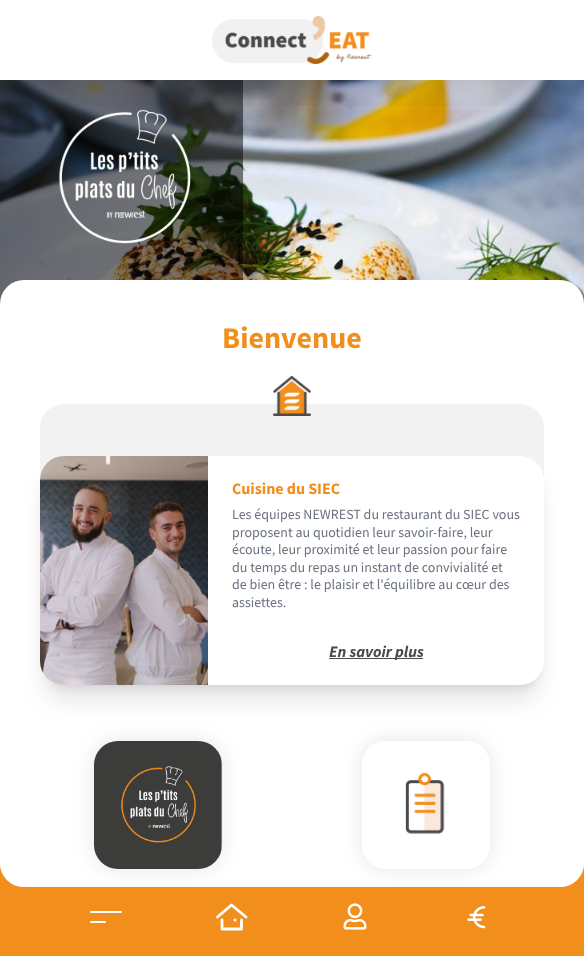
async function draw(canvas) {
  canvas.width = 584;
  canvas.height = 956;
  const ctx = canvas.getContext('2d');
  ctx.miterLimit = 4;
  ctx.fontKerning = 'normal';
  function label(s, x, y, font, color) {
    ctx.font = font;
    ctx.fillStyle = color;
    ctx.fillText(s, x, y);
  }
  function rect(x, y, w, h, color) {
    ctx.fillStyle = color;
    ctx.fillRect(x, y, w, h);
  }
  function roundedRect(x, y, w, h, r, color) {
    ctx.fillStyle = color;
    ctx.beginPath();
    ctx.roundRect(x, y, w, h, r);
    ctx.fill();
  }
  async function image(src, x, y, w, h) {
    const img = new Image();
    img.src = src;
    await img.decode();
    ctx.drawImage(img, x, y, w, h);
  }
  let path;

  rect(0, 0, 584, 956, '#f28e1c');
  ctx.fillStyle = '#fff';
  ctx.beginPath();
  ctx.roundRect(0, 0, 584, 887, [0, 0, 24, 24]);
  ctx.fill();
  await image('assets/img2.png', 0, 80, 584, 224);
  rect(0, 80, 243, 224, '#00000080');
  await image('assets/img3.png', 58, 109, 133, 135);
  ctx.save();
  ctx.beginPath();
  ctx.rect(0, 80, 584, 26);
  ctx.clip();
  ctx.fillStyle = '#00000029';
  ctx.filter = 'blur(20px)';
  ctx.beginPath();
  ctx.rect(0, 3, 584, 80);
  ctx.fill();
  ctx.filter = 'none';
  ctx.restore();
  await image('assets/img1.png', 212, 16, 161, 48);
  roundedRect(0, 280, 584, 607, 24, '#fff');
  label('Bienvenue', 222, 348, 'bold 30px Source Sans Pro', '#f28e1c');
  roundedRect(40, 404, 504, 281, 24, '#f2f2f2');
  await image('assets/img4.png', 273, 376, 38, 40);
  ctx.fillStyle = '#0000001a';
  ctx.filter = 'blur(5px)';
  ctx.beginPath();
  ctx.roundRect(46, 470, 492, 217, 18);
  ctx.fill();
  ctx.filter = 'none';
  ctx.filter = 'blur(12.5px)';
  ctx.beginPath();
  ctx.roundRect(45, 481, 494, 219, 19);
  ctx.fill();
  ctx.filter = 'none';
  roundedRect(40, 456, 504, 229, 24, '#fff');
  await image('assets/img5.png', 40, 456, 168, 229);
  label('Cuisine du SIEC', 232, 494, 'bold 16px Source Sans Pro', '#f28e1c');
  label('Les équipes NEWREST du restaurant du SIEC vous', 232, 519, '14px Source Sans Pro', '#6b7280');
  label('proposent au quotidien leur savoir-faire, leur', 232, 537, '14px Source Sans Pro', '#6b7280');
  label('écoute, leur proximité et leur passion pour faire', 232, 554, '14px Source Sans Pro', '#6b7280');
  label('du temps du repas un instant de convivialité et', 232, 572, '14px Source Sans Pro', '#6b7280');
  label('de bien être : le plaisir et l\'équilibre au cœur des', 232, 589, '14px Source Sans Pro', '#6b7280');
  label('assiettes.', 232, 607, '14px Source Sans Pro', '#6b7280');
  rect(329, 658, 94, 1, '#4b4a4b');
  label('En savoir plus', 329, 657, 'italic bold 16px Source Sans Pro', '#4b4a4b');
  ctx.fillStyle = '#0000001a';
  ctx.filter = 'blur(10px)';
  ctx.beginPath();
  ctx.roundRect(94, 741, 128, 128, 24);
  ctx.fill();
  ctx.filter = 'none';
  await image('assets/img6.png', 94, 741, 128, 128);
  ctx.save();
  path = new Path2D('M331 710H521V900H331ZM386 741H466C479.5 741 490 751.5 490 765V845C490 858.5 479.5 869 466 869H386C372.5 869 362 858.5 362 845V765C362 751.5 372.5 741 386 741Z');
  ctx.clip(path, 'evenodd');
  ctx.filter = 'blur(10px)';
  ctx.beginPath();
  ctx.roundRect(362, 741, 128, 128, 24);
  ctx.fill();
  ctx.filter = 'none';
  ctx.restore();
  await image('assets/img7.png', 405, 772, 40, 62);
  roundedRect(90, 911, 32, 2, 1, '#fff');
  roundedRect(90, 921, 16, 2, 1, '#fff');
  path = new Path2D('M222 920V929H241.5V920M246 917L231.5 905L217.5 917');
  ctx.strokeStyle = '#fff';
  ctx.lineWidth = 2.8;
  ctx.lineCap = 'round';
  ctx.lineJoin = 'round';
  ctx.stroke(path);
  ctx.beginPath();
  ctx.arc(235, 919.9, 1.5, 0, 2 * Math.PI);
  ctx.fill();
  await image('assets/img8.png', 343, 903, 24, 27);
  await image('assets/img9.png', 467, 906, 19, 23);
}

draw(document.querySelector('canvas'));
